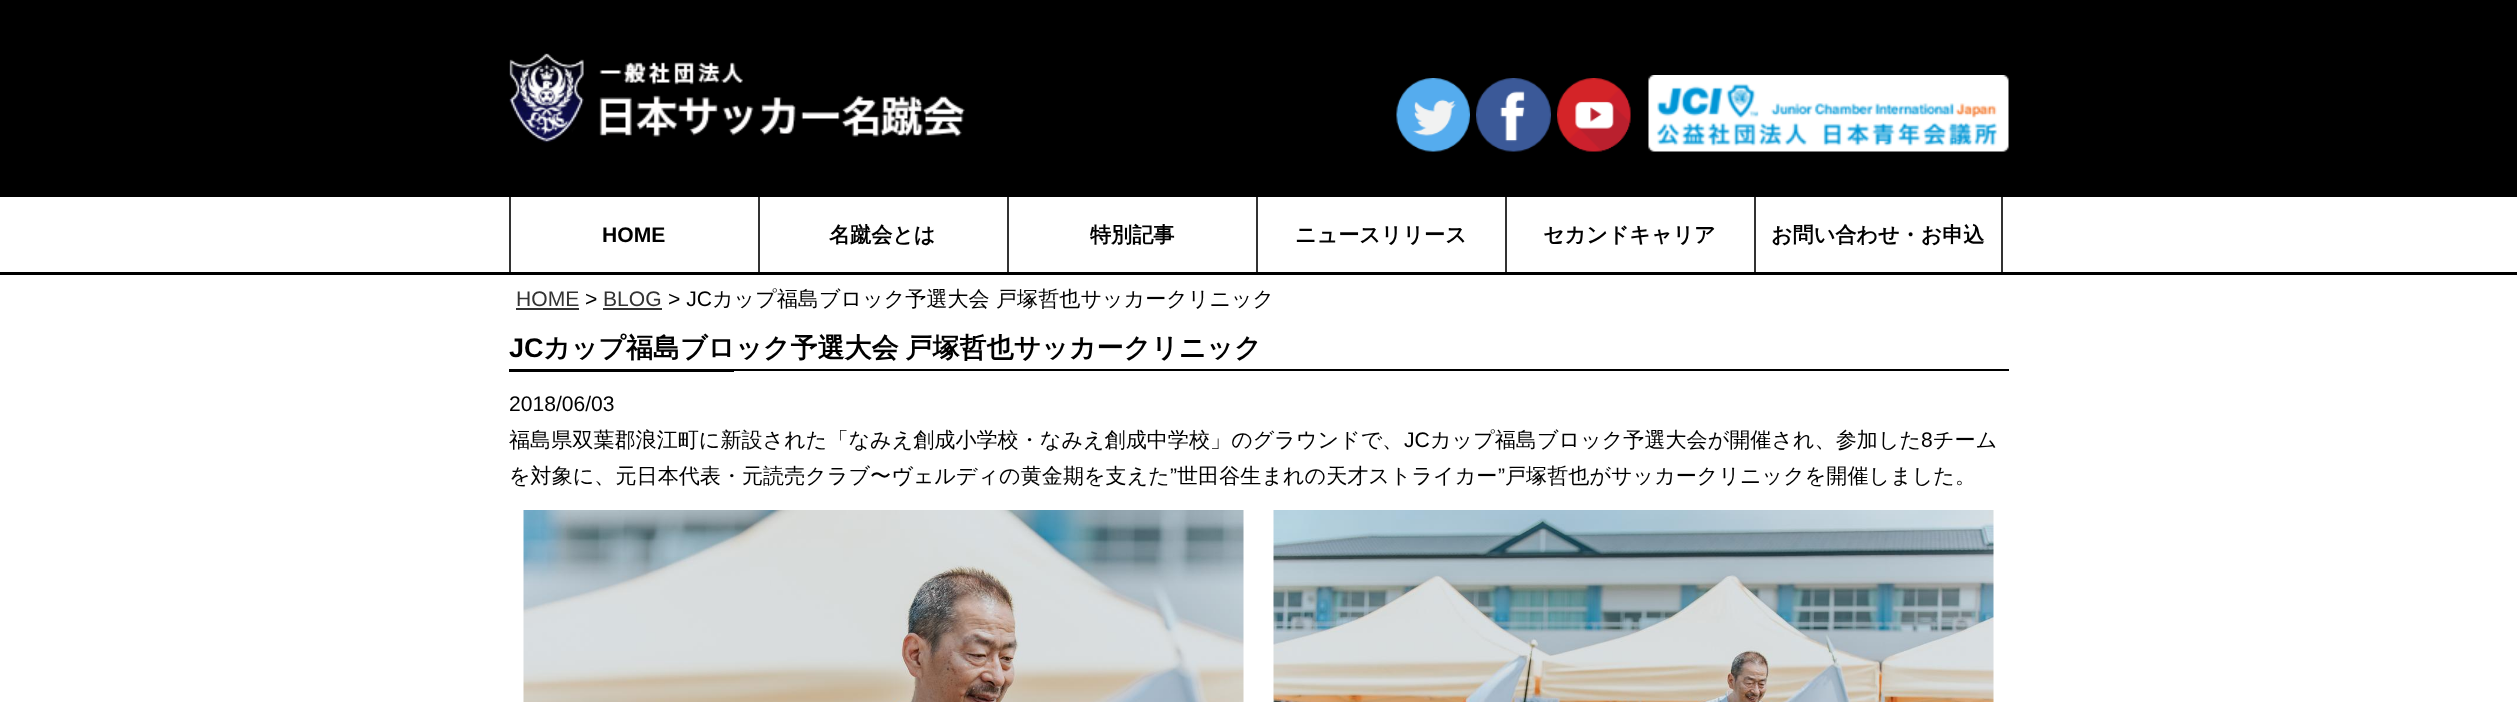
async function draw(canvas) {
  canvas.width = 2517;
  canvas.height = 702;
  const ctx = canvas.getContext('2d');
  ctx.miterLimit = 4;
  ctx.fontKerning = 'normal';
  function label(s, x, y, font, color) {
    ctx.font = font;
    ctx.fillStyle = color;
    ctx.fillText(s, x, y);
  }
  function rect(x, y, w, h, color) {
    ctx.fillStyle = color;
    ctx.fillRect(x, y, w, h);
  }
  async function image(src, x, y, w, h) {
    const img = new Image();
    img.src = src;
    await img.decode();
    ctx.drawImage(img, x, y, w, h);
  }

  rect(0, 0, 2517, 702, '#fff');
  rect(0, 0, 2517, 197, '#000');
  await image('assets/img1.png', 509, 53, 456, 90);
  await image('assets/img2.png', 1396, 78, 74, 74);
  await image('assets/img3.png', 1476, 78, 75, 74);
  await image('assets/img4.png', 1557, 78, 74, 74);
  await image('assets/img5.png', 1648, 75, 361, 77);
  rect(0, 272, 2517, 3, '#000');
  rect(509, 197, 2, 75, '#333');
  label('HOME', 602, 242, 'bold 21.1px Liberation Sans', '#000');
  rect(758, 197, 2, 75, '#333');
  label('名蹴会とは', 829, 242, 'bold 21.1px WenQuanYi Zen Hei', '#000');
  rect(1007, 197, 2, 75, '#333');
  label('特別記事', 1090, 242, 'bold 21.1px WenQuanYi Zen Hei', '#000');
  rect(1256, 197, 2, 75, '#333');
  label('ニュースリリース', 1295, 242, 'bold 21.1px WenQuanYi Zen Hei', '#000');
  rect(1505, 197, 2, 75, '#333');
  label('セカンドキャリア', 1543, 242, 'bold 21.1px WenQuanYi Zen Hei', '#000');
  rect(2001, 197, 2, 75, '#333');
  rect(1754, 197, 2, 75, '#333');
  label('お問い合わせ・お申込', 1771, 242, 'bold 21.1px WenQuanYi Zen Hei', '#000');
  label('HOME', 516, 306, '21.1px Liberation Sans', '#333');
  rect(516, 308, 63, 2, '#333');
  label('>', 585, 306, '21.1px Liberation Sans', '#000');
  label('BLOG', 603, 306, '21.1px Liberation Sans', '#333');
  rect(603, 308, 59, 2, '#333');
  label('> JC', 668, 306, '21.1px Liberation Sans', '#000');
  label('カップ福島ブロック予選大会 戸塚哲也サッカークリニック', 712, 306, '500 21.1px WenQuanYi Zen Hei', '#000');
  label('JC', 509, 357, 'bold 27px Liberation Sans', '#000');
  ctx.wordSpacing = '-1px';
  label('カップ福島ブロック予選大会 戸塚哲也サッカークリニック', 543, 357, 'bold 27px WenQuanYi Zen Hei', '#000');
  rect(509, 369, 225, 3, '#000');
  rect(734, 369, 1275, 2, '#000');
  ctx.wordSpacing = '0px';
  label('2018/06/03', 509, 411, '21.1px Liberation Sans', '#000');
  label('福島県双葉郡浪江町に新設された「なみえ創成小学校・なみえ創成中学校」のグラウンドで、', 509, 447, '500 21.1px WenQuanYi Zen Hei', '#000');
  label('JC', 1404, 447, '21.1px Liberation Sans', '#000');
  label('カップ福島ブロック予選大会が開催され、参加した', 1430, 447, '500 21.1px WenQuanYi Zen Hei', '#000');
  label('8', 1921, 447, '21.1px Liberation Sans', '#000');
  label('チーム', 1933, 447, '500 21.1px WenQuanYi Zen Hei', '#000');
  label('を対象に、元日本代表・元読売クラブ〜ヴェルディの黄金期を支えた', 509, 483, '500 21.1px WenQuanYi Zen Hei', '#000');
  label('”', 1170, 483, '21.1px Liberation Sans', '#000');
  label('世田谷生まれの天才ストライカー', 1177, 483, '500 21.1px WenQuanYi Zen Hei', '#000');
  label('”', 1498, 483, '21.1px Liberation Sans', '#000');
  label('戸塚哲也がサッカークリニックを開催しました。', 1505, 483, '500 21.1px WenQuanYi Zen Hei', '#000');
  await image('assets/img6.png', 523, 510, 721, 192);
  await image('assets/img7.png', 1273, 510, 721, 192);
}

draw(document.querySelector('canvas'));
